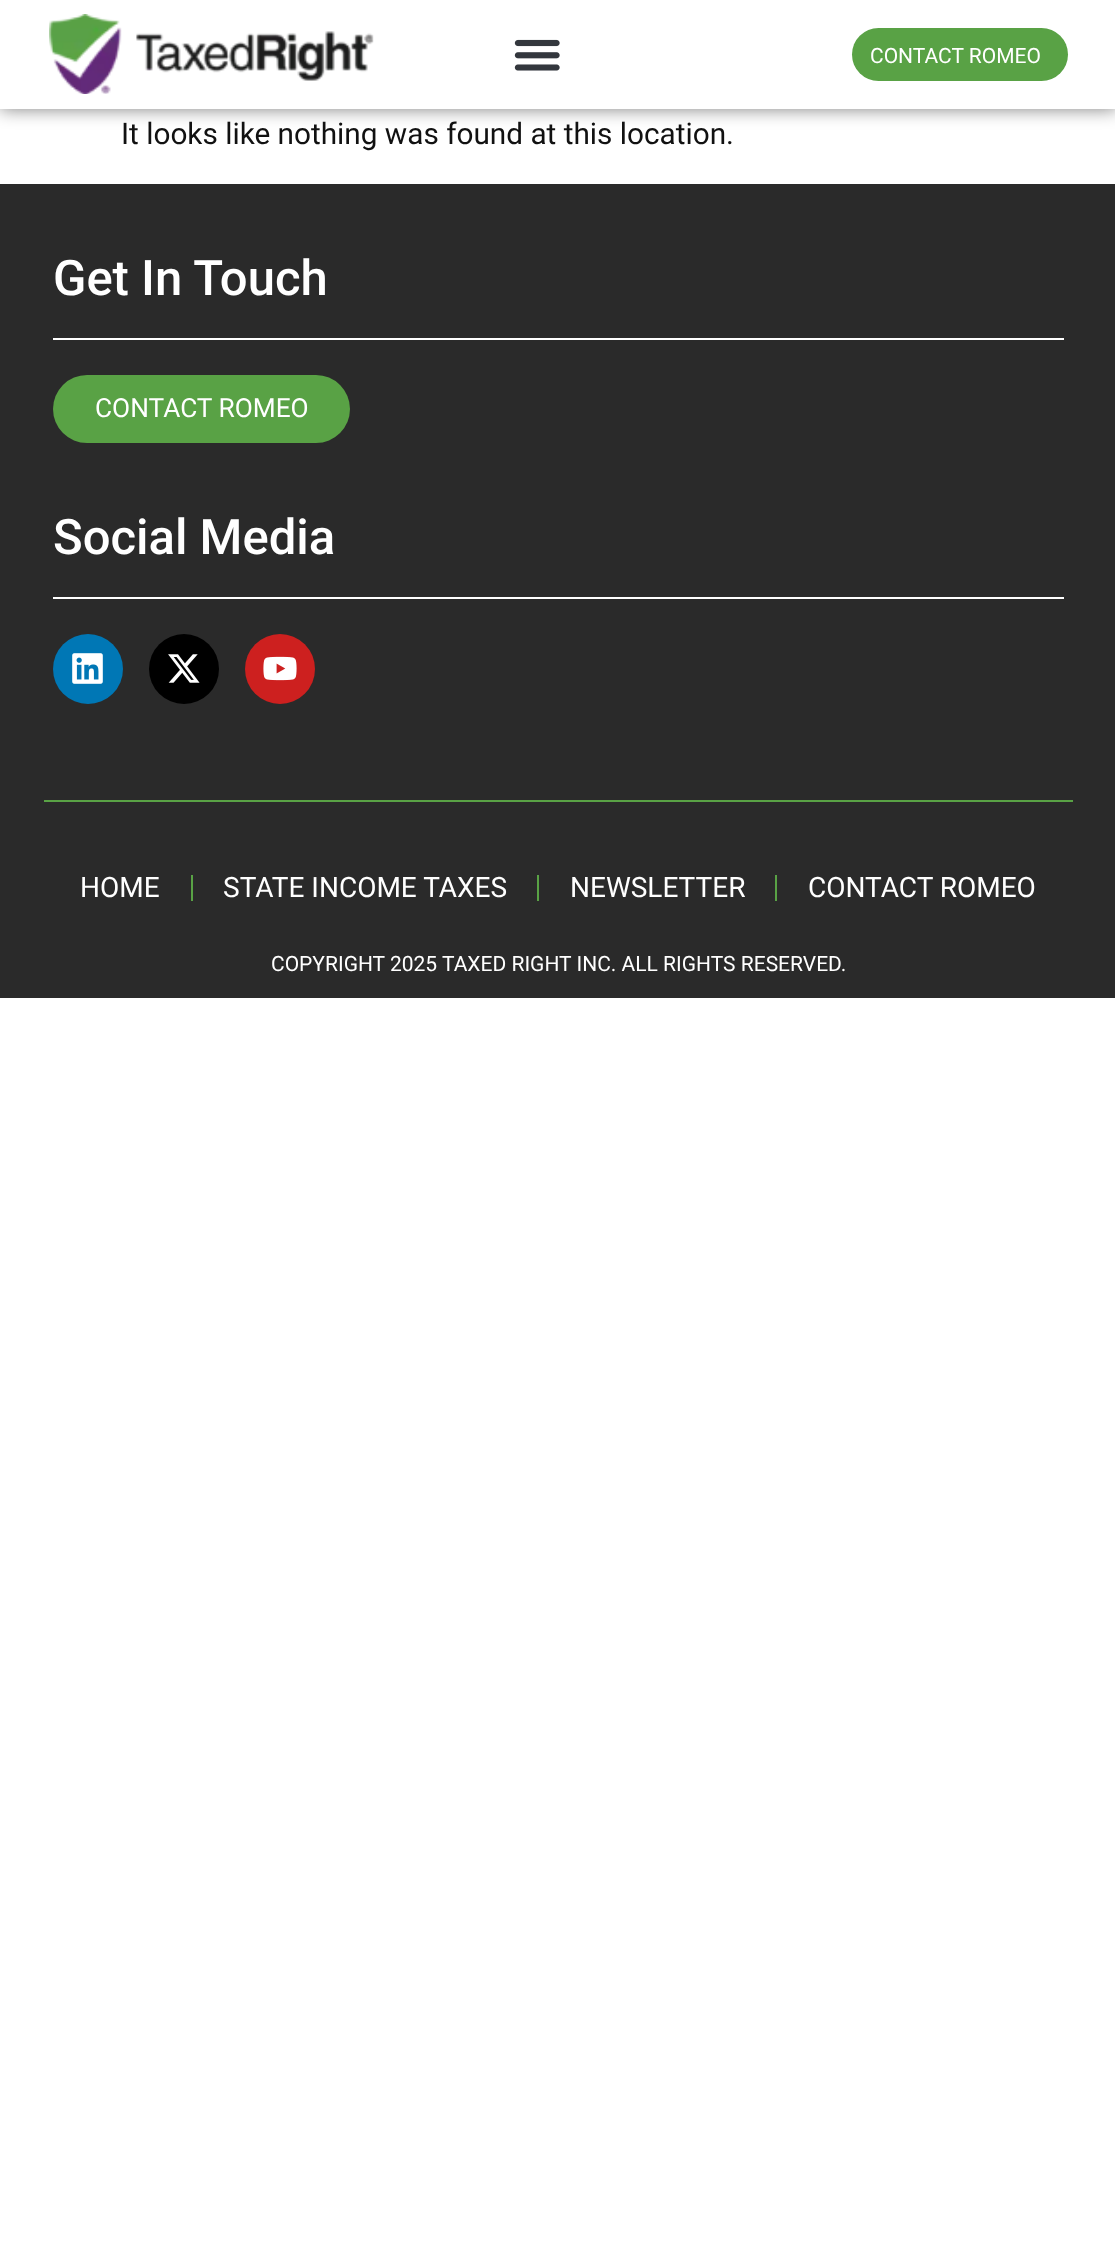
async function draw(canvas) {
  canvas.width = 1115;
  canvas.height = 2268;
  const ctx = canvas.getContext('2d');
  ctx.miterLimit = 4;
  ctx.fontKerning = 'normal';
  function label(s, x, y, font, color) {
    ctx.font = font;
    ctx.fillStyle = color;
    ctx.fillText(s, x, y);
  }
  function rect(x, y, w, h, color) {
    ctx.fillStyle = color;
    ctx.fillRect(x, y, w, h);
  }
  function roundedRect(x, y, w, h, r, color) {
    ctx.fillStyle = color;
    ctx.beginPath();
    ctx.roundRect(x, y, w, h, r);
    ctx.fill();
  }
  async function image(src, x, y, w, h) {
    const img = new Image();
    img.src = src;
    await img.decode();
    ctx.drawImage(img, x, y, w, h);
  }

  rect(0, 0, 1115, 2268, '#fff');
  ctx.fillStyle = '#00000080';
  ctx.filter = 'blur(9px)';
  ctx.beginPath();
  ctx.rect(0, 0, 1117, 109);
  ctx.fill();
  ctx.filter = 'none';
  rect(0, 0, 1115, 109, '#fff');
  await image('assets/img1.png', 49, 14, 325, 80);
  await image('assets/img2.png', 514, 39, 46, 32);
  roundedRect(852, 28, 216, 53, 26.5, '#59a245');
  label('CONTACT ROMEO', 870, 63, '21px Roboto', '#fff');
  label('It looks like nothing was found at this location.', 121, 144, '29.75px Roboto', '#111');
  rect(0, 184, 1115, 814, '#2a2a2a');
  label('Get In Touch', 53, 295, '500 49px Roboto', '#fff');
  rect(53, 338, 1011, 2, '#fff');
  roundedRect(53, 375, 297, 68, 34, '#59a245');
  label('CONTACT ROMEO', 95, 417, '26.25px Roboto', '#fff');
  label('Social Media', 53, 554, '500 49px Roboto', '#fff');
  rect(53, 597, 1011, 2, '#fff');
  ctx.fillStyle = '#0077b5';
  ctx.beginPath();
  ctx.arc(88, 669, 35, 0, 2 * Math.PI);
  ctx.fill();
  await image('assets/img3.png', 72, 653, 31, 31);
  ctx.fillStyle = '#000';
  ctx.beginPath();
  ctx.arc(184, 669, 35, 0, 2 * Math.PI);
  ctx.fill();
  await image('assets/img4.png', 168, 654, 32, 29);
  ctx.fillStyle = '#cd201f';
  ctx.beginPath();
  ctx.arc(280, 669, 35, 0, 2 * Math.PI);
  ctx.fill();
  await image('assets/img5.png', 263, 656, 34, 25);
  rect(44, 800, 1029, 2, '#59a245');
  label('HOME', 80, 897, '28px Roboto', '#fff');
  rect(191, 875, 2, 26, '#59a245');
  label('STATE INCOME TAXES', 223, 897, '28px Roboto', '#fff');
  rect(537, 875, 2, 26, '#59a245');
  label('NEWSLETTER', 570, 897, '28px Roboto', '#fff');
  rect(775, 875, 2, 26, '#59a245');
  label('CONTACT ROMEO', 808, 897, '28px Roboto', '#fff');
  label('COPYRIGHT 2025 TAXED RIGHT INC. ALL RIGHTS RESERVED.', 271, 971, '21px Roboto', '#fff');
}

draw(document.querySelector('canvas'));
